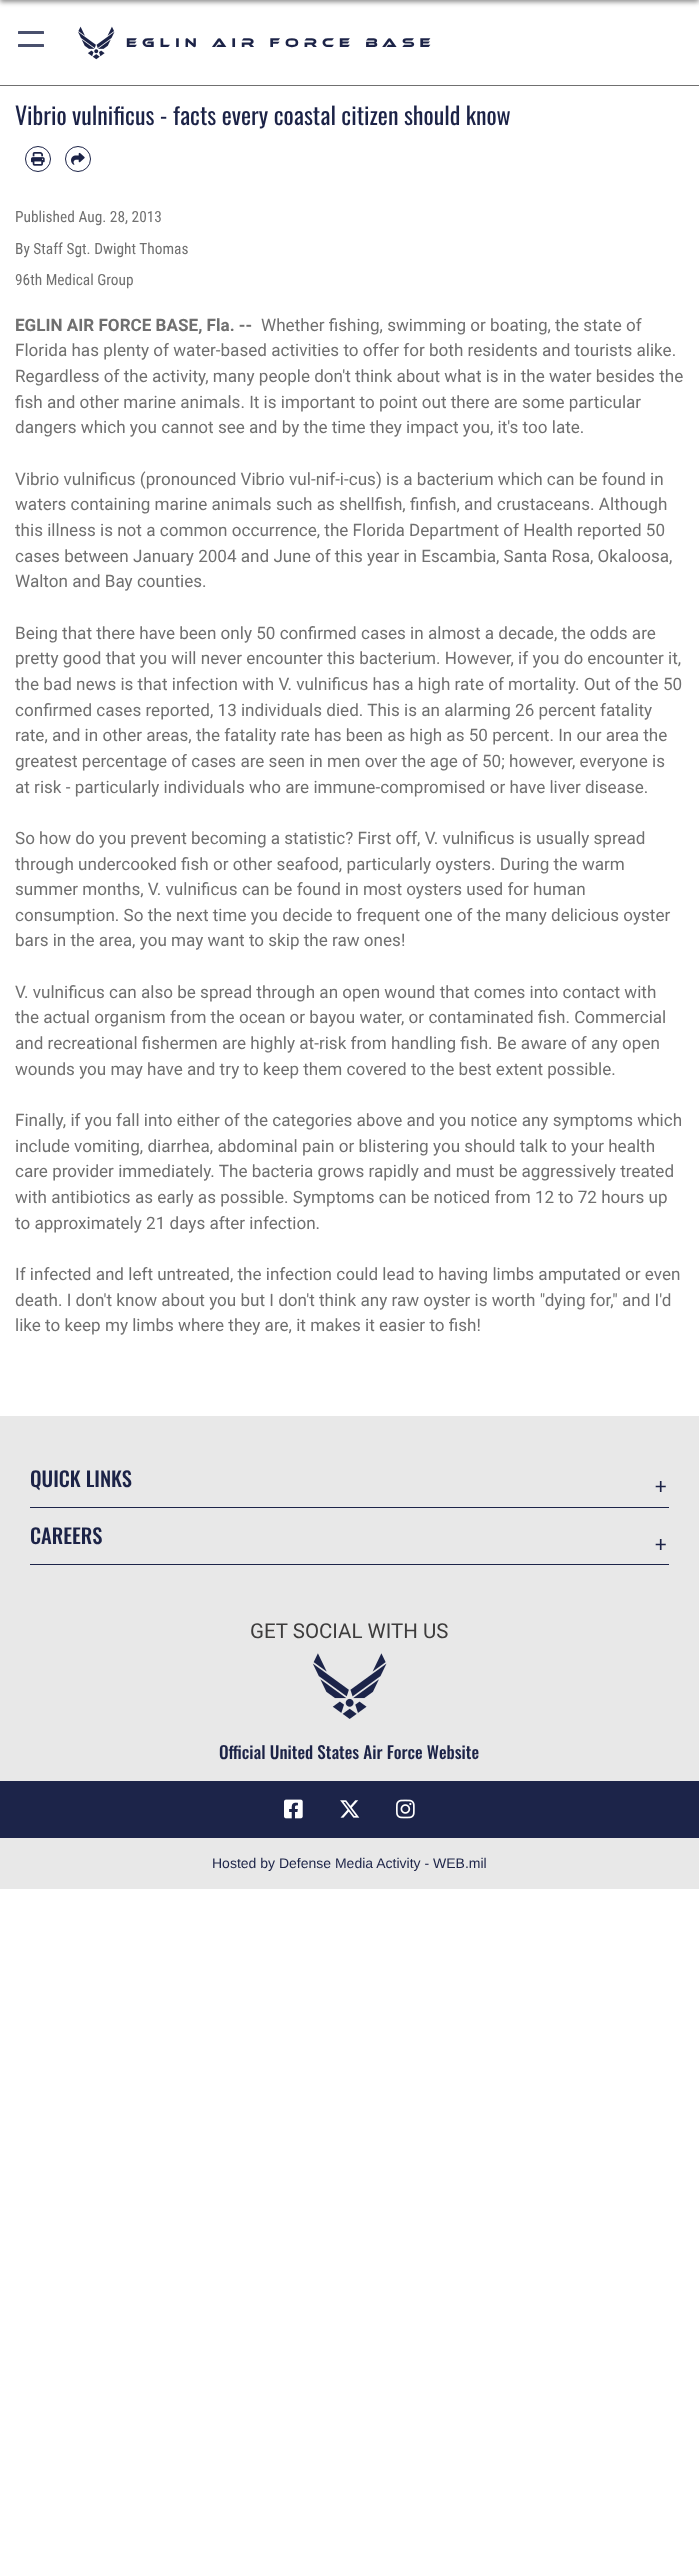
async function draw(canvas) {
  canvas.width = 699;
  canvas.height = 2572;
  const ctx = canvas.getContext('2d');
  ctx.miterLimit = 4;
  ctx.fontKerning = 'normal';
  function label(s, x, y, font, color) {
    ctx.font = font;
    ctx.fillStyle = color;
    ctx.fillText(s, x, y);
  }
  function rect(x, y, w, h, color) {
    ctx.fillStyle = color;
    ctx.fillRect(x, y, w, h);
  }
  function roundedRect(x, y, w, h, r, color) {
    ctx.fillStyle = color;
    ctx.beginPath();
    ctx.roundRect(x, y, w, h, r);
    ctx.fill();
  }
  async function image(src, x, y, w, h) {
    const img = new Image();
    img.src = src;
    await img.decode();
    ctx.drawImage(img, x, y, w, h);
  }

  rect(0, 0, 699, 2572, '#fff');
  ctx.fillStyle = '#1a1a1a80';
  ctx.filter = 'blur(2.5px)';
  ctx.beginPath();
  ctx.rect(0, -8, 699, 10);
  ctx.fill();
  ctx.filter = 'none';
  rect(0, 85, 699, 1, '#707070');
  roundedRect(18, 31, 26, 3, 0.5, '#49506d');
  roundedRect(18, 44, 26, 3, 0.5, '#49506d');
  await image('assets/img1.png', 78, 26, 37, 34);
  ctx.letterSpacing = '5.1px';
  label('Eglin Air Force Base', 126, 47, '13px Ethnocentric', '#1c2347');
  ctx.letterSpacing = '0px';
  label('Vibrio vulnificus - facts every coastal citizen should know', 15, 125, '23.95px Oswald', '#1c2347');
  ctx.beginPath();
  ctx.arc(38, 159, 12.5, 0, 2 * Math.PI);
  ctx.strokeStyle = '#1c2347';
  ctx.stroke();
  await image('assets/img2.png', 31, 152, 14, 14);
  ctx.beginPath();
  ctx.arc(78, 159, 12.5, 0, 2 * Math.PI);
  ctx.stroke();
  await image('assets/img3.png', 71, 152, 14, 13);
  label('Published Aug. 28, 2013', 15, 222, '15.4px Roboto Condensed', '#707070');
  label('By Staff Sgt. Dwight Thomas', 15, 254, '15.4px Roboto Condensed', '#707070');
  label('96th Medical Group', 15, 285, '15.4px Roboto Condensed', '#707070');
  label('EGLIN AIR FORCE BASE, Fla. --', 15, 331, 'bold 17.1px Roboto', '#707070');
  label('Whether fishing, swimming or boating, the state of', 261, 331, '17.1px Roboto', '#707070');
  label('Florida has plenty of water-based activities to offer for both residents and tourists alike.', 15, 356, '17.1px Roboto', '#707070');
  label('Regardless of the activity, many people don\'t think about what is in the water besides the', 15, 382, '17.1px Roboto', '#707070');
  label('fish and other marine animals. It is important to point out there are some particular', 15, 408, '17.1px Roboto', '#707070');
  label('dangers which you cannot see and by the time they impact you, it\'s too late.', 15, 433, '17.1px Roboto', '#707070');
  label('Vibrio vulnificus (pronounced Vibrio vul-nif-i-cus) is a bacterium which can be found in', 15, 485, '17.1px Roboto', '#707070');
  label('waters containing marine animals such as shellfish, finfish, and crustaceans. Although', 15, 510, '17.1px Roboto', '#707070');
  label('this illness is not a common occurrence, the Florida Department of Health reported 50', 15, 536, '17.1px Roboto', '#707070');
  label('cases between January 2004 and June of this year in Escambia, Santa Rosa, Okaloosa,', 15, 562, '17.1px Roboto', '#707070');
  label('Walton and Bay counties.', 15, 587, '17.1px Roboto', '#707070');
  label('Being that there have been only 50 confirmed cases in almost a decade, the odds are', 15, 639, '17.1px Roboto', '#707070');
  label('pretty good that you will never encounter this bacterium. However, if you do encounter it,', 15, 664, '17.1px Roboto', '#707070');
  label('the bad news is that infection with V. vulnificus has a high rate of mortality. Out of the 50', 15, 690, '17.1px Roboto', '#707070');
  label('confirmed cases reported, 13 individuals died. This is an alarming 26 percent fatality', 15, 716, '17.1px Roboto', '#707070');
  label('rate, and in other areas, the fatality rate has been as high as 50 percent. In our area the', 15, 741, '17.1px Roboto', '#707070');
  label('greatest percentage of cases are seen in men over the age of 50; however, everyone is', 15, 767, '17.1px Roboto', '#707070');
  label('at risk - particularly individuals who are immune-compromised or have liver disease.', 15, 793, '17.1px Roboto', '#707070');
  label('So how do you prevent becoming a statistic? First off, V. vulnificus is usually spread', 15, 844, '17.1px Roboto', '#707070');
  label('through undercooked fish or other seafood, particularly oysters. During the warm', 15, 870, '17.1px Roboto', '#707070');
  label('summer months, V. vulnificus can be found in most oysters used for human', 15, 895, '17.1px Roboto', '#707070');
  label('consumption. So the next time you decide to frequent one of the many delicious oyster', 15, 921, '17.1px Roboto', '#707070');
  label('bars in the area, you may want to skip the raw ones!', 15, 946, '17.1px Roboto', '#707070');
  label('V. vulnificus can also be spread through an open wound that comes into contact with', 15, 998, '17.1px Roboto', '#707070');
  label('the actual organism from the ocean or bayou water, or contaminated fish. Commercial', 15, 1023, '17.1px Roboto', '#707070');
  label('and recreational fishermen are highly at-risk from handling fish. Be aware of any open', 15, 1049, '17.1px Roboto', '#707070');
  label('wounds you may have and try to keep them covered to the best extent possible.', 15, 1075, '17.1px Roboto', '#707070');
  label('Finally, if you fall into either of the categories above and you notice any symptoms which', 15, 1126, '17.1px Roboto', '#707070');
  label('include vomiting, diarrhea, abdominal pain or blistering you should talk to your health', 15, 1152, '17.1px Roboto', '#707070');
  label('care provider immediately. The bacteria grows rapidly and must be aggressively treated', 15, 1177, '17.1px Roboto', '#707070');
  label('with antibiotics as early as possible. Symptoms can be noticed from 12 to 72 hours up', 15, 1203, '17.1px Roboto', '#707070');
  label('to approximately 21 days after infection.', 15, 1229, '17.1px Roboto', '#707070');
  label('If infected and left untreated, the infection could lead to having limbs amputated or even', 15, 1280, '17.1px Roboto', '#707070');
  label('death. I don\'t know about you but I don\'t think any raw oyster is worth "dying for," and I\'d', 15, 1306, '17.1px Roboto', '#707070');
  label('like to keep my limbs where they are, it makes it easier to fish!', 15, 1331, '17.1px Roboto', '#707070');
  rect(0, 1416, 699, 473, '#e8e8e8');
  rect(30, 1507, 639, 1, '#1c2449');
  label('QUICK LINKS', 30, 1487, '500 20.5px Oswald', '#1c2347');
  label('+', 655, 1499, '300 30px Oswald', '#1c2347');
  rect(30, 1564, 639, 1, '#1c2449');
  label('CAREERS', 30, 1544, '500 20.5px Oswald', '#1c2347');
  label('+', 655, 1557, '300 30px Oswald', '#1c2347');
  label('GET SOCIAL WITH US', 250, 1638, '20.5px Roboto', '#3d3c3c');
  await image('assets/img4.png', 312, 1653, 75, 66);
  label('Official United States Air Force Website', 219, 1759, '500 17.1px Oswald', '#1c2347');
  rect(0, 1781, 699, 57, '#1c2449');
  await image('assets/img5.png', 284, 1799, 19, 20);
  await image('assets/img6.png', 340, 1800, 20, 18);
  await image('assets/img7.png', 396, 1799, 19, 20);
  label('Hosted by Defense Media Activity - WEB.mil', 212, 1868, '14px Liberation Sans', '#1c2347');
}

draw(document.querySelector('canvas'));
